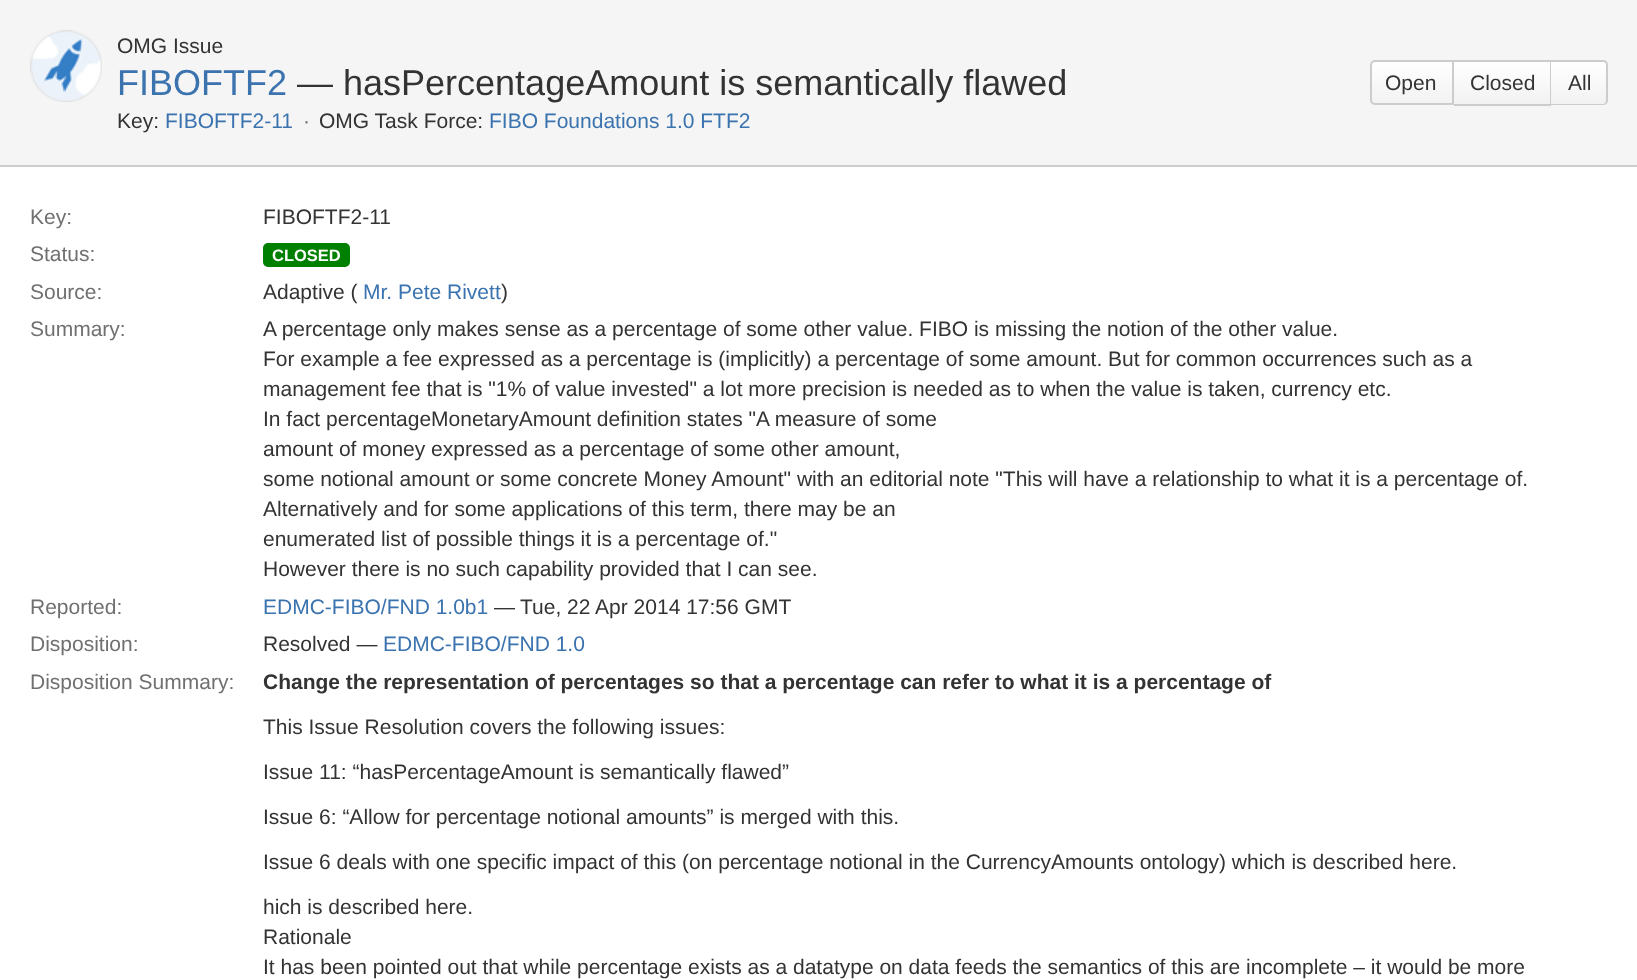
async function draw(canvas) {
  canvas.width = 1637;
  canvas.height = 980;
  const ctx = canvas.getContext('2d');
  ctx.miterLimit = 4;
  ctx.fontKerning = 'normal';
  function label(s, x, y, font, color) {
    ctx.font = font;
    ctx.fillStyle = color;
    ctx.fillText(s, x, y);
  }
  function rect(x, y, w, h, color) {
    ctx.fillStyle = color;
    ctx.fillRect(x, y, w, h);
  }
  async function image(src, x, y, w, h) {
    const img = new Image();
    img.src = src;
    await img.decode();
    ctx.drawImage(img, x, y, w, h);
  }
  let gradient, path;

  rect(0, 0, 1637, 980, '#f5f5f5');
  await image('assets/img1.png', 30, 30, 72, 72);
  label('OMG Issue', 117, 53, '21px Liberation Sans', '#333');
  label('FIBOFTF2', 117, 95, '36px Liberation Sans', '#3b73af');
  label('— hasPercentageAmount is semantically flawed', 297, 95, '36px Liberation Sans', '#333');
  label('Key:', 117, 128, '21px Liberation Sans', '#333');
  label('FIBOFTF2-11', 165, 128, '21px Liberation Sans', '#3b73af');
  label('·', 303, 128, '21px Liberation Sans', '#707070');
  label('OMG Task Force:', 319, 128, '21px Liberation Sans', '#333');
  label('FIBO Foundations 1.0 FTF2', 489, 128, '21px Liberation Sans', '#3b73af');
  ctx.save();
  ctx.beginPath();
  ctx.roundRect(1370, 60, 84, 45, [5, 0, 0, 5]);
  ctx.clip();
  gradient = ctx.createLinearGradient(1412, 62, 1412, 104);
  gradient.addColorStop(0, '#fff');
  gradient.addColorStop(1, '#f2f2f2');
  ctx.fillStyle = gradient;
  ctx.fillRect(1370, 62, 82, 42);
  ctx.restore();
  ctx.beginPath();
  ctx.roundRect(1371, 61, 82, 43, [4, 0, 0, 4]);
  ctx.strokeStyle = '#ccc';
  ctx.lineWidth = 2;
  ctx.stroke();
  label('Open', 1385, 90, '21px Liberation Sans', '#333');
  gradient = ctx.createLinearGradient(1502, 62, 1502, 104);
  gradient.addColorStop(0, '#fff');
  gradient.addColorStop(1, '#f2f2f2');
  ctx.fillStyle = gradient;
  ctx.fillRect(1454, 62, 96, 42);
  rect(1454, 60, 97, 2, '#ccc');
  rect(1550, 60, 1, 45, '#ccc');
  rect(1454, 104, 97, 2, '#ccc');
  label('Closed', 1470, 90, '21px Liberation Sans', '#333');
  gradient = ctx.createLinearGradient(1579, 62, 1579, 104);
  gradient.addColorStop(0, '#fff');
  gradient.addColorStop(1, '#f2f2f2');
  ctx.fillStyle = gradient;
  ctx.beginPath();
  ctx.roundRect(1551, 62, 56, 42, [0, 3, 3, 0]);
  ctx.fill();
  ctx.fillStyle = '#ccc';
  path = new Path2D('M1551 60H1603C1606 60 1608 62 1608 65V100C1608 103 1606 105 1603 105H1551ZM1551 62H1603C1605 62 1606 63 1606 65V100C1606 102 1605 104 1603 104H1551Z');
  ctx.fill(path, 'evenodd');
  label('All', 1568, 90, '21px Liberation Sans', '#333');
  rect(0, 167, 1637, 813, '#fff');
  rect(0, 165, 1637, 2, '#ccc');
  label('Key:', 30, 224, '21px Liberation Sans', '#707070');
  label('FIBOFTF2-11', 263, 224, '21px Liberation Sans', '#333');
  label('Status:', 30, 261, '21px Liberation Sans', '#707070');
  ctx.fillStyle = '#008000';
  ctx.beginPath();
  ctx.roundRect(264, 244, 85, 22, 4);
  ctx.fill();
  ctx.strokeStyle = '#008000';
  ctx.stroke();
  label('CLOSED', 272, 261, 'bold 16.5px Liberation Sans', '#fff');
  label('Source:', 30, 299, '21px Liberation Sans', '#707070');
  label('Adaptive (', 263, 299, '21px Liberation Sans', '#333');
  label('Mr. Pete Rivett', 363, 299, '21px Liberation Sans', '#3b73af');
  label(')', 501, 299, '21px Liberation Sans', '#333');
  label('Summary:', 30, 336, '21px Liberation Sans', '#707070');
  label('A percentage only makes sense as a percentage of some other value. FIBO is missing the notion of the other value.', 263, 336, '21px Liberation Sans', '#333');
  label('For example a fee expressed as a percentage is (implicitly) a percentage of some amount. But for common occurrences such as a', 263, 366, '21px Liberation Sans', '#333');
  label('management fee that is "1% of value invested" a lot more precision is needed as to when the value is taken, currency etc.', 263, 396, '21px Liberation Sans', '#333');
  label('In fact percentageMonetaryAmount definition states "A measure of some', 263, 426, '21px Liberation Sans', '#333');
  label('amount of money expressed as a percentage of some other amount,', 263, 456, '21px Liberation Sans', '#333');
  label('some notional amount or some concrete Money Amount" with an editorial note "This will have a relationship to what it is a percentage of.', 263, 486, '21px Liberation Sans', '#333');
  label('Alternatively and for some applications of this term, there may be an', 263, 516, '21px Liberation Sans', '#333');
  label('enumerated list of possible things it is a percentage of."', 263, 546, '21px Liberation Sans', '#333');
  label('However there is no such capability provided that I can see.', 263, 576, '21px Liberation Sans', '#333');
  label('Reported:', 30, 614, '21px Liberation Sans', '#707070');
  label('EDMC-FIBO/FND 1.0b1', 263, 614, '21px Liberation Sans', '#3b73af');
  label('—', 494, 614, '21px Liberation Sans', '#333');
  label('Tue, 22 Apr 2014 17:56 GMT', 520, 614, '21px Liberation Sans', '#333');
  label('Disposition:', 30, 651, '21px Liberation Sans', '#707070');
  label('Resolved —', 263, 651, '21px Liberation Sans', '#333');
  label('EDMC-FIBO/FND 1.0', 383, 651, '21px Liberation Sans', '#3b73af');
  label('Disposition Summary:', 30, 689, '21px Liberation Sans', '#707070');
  label('Change the representation of percentages so that a percentage can refer to what it is a percentage of', 263, 689, 'bold 21px Liberation Sans', '#333');
  label('This Issue Resolution covers the following issues:', 263, 734, '21px Liberation Sans', '#333');
  label('Issue 11: “hasPercentageAmount is semantically flawed”', 263, 779, '21px Liberation Sans', '#333');
  label('Issue 6: “Allow for percentage notional amounts” is merged with this.', 263, 824, '21px Liberation Sans', '#333');
  label('Issue 6 deals with one specific impact of this (on percentage notional in the CurrencyAmounts ontology) which is described here.', 263, 869, '21px Liberation Sans', '#333');
  label('hich is described here.', 263, 914, '21px Liberation Sans', '#333');
  label('Rationale', 263, 944, '21px Liberation Sans', '#333');
  label('It has been pointed out that while percentage exists as a datatype on data feeds the semantics of this are incomplete – it would be more', 263, 974, '21px Liberation Sans', '#333');
}

draw(document.querySelector('canvas'));
